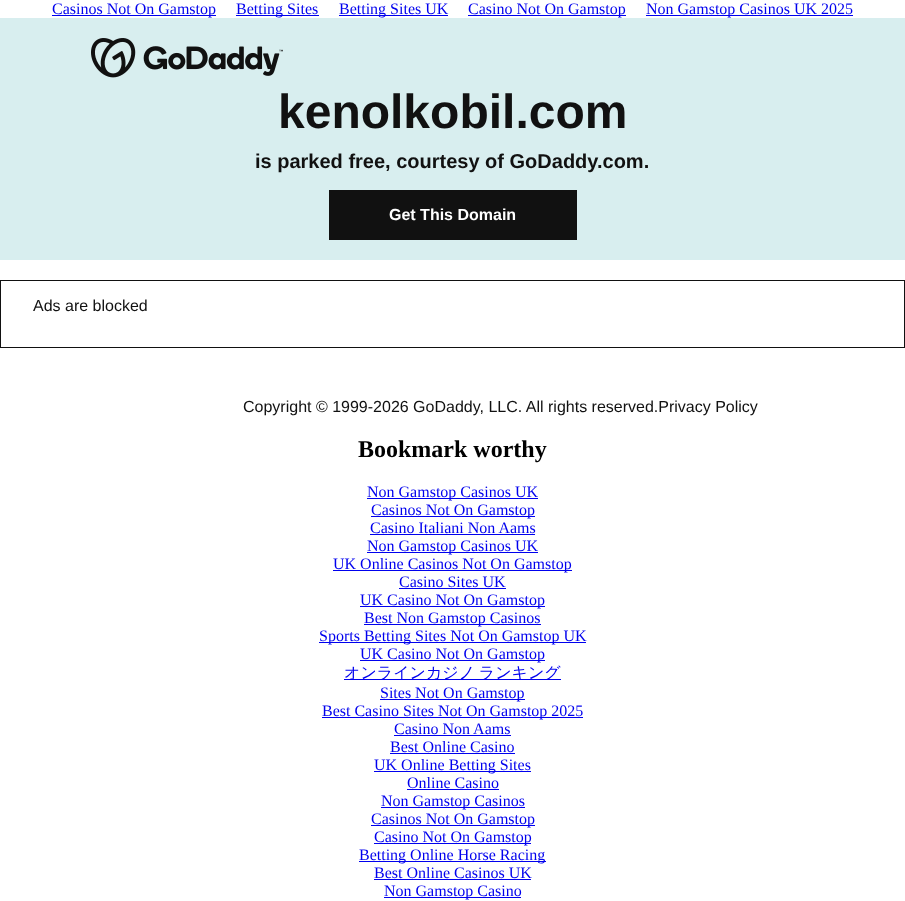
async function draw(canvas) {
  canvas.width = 905;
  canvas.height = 901;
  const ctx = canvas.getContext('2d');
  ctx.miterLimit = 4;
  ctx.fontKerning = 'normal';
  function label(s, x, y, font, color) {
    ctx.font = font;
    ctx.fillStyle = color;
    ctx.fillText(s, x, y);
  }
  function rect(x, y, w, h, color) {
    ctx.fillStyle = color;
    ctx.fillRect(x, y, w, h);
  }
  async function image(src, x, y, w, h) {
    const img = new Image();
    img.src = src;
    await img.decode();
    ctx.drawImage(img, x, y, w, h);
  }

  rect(0, 0, 905, 901, '#fff');
  rect(52, 15, 164, 1, '#00e');
  label('Casinos Not On Gamstop', 52, 14, '16px Liberation Serif', '#00e');
  rect(236, 15, 83, 1, '#00e');
  label('Betting Sites', 236, 14, '16px Liberation Serif', '#00e');
  rect(339, 15, 109, 1, '#00e');
  label('Betting Sites UK', 339, 14, '16px Liberation Serif', '#00e');
  rect(468, 15, 158, 1, '#00e');
  label('Casino Not On Gamstop', 468, 14, '16px Liberation Serif', '#00e');
  rect(646, 15, 207, 1, '#00e');
  label('Non Gamstop Casinos UK 2025', 646, 14, '16px Liberation Serif', '#00e');
  rect(0, 18, 905, 242, '#d8eeef');
  await image('assets/img1.png', 91, 38, 192, 40);
  label('kenolkobil.com', 278, 128, 'bold 48px Liberation Sans', '#111');
  label('is parked free, courtesy of GoDaddy.com.', 255, 168, 'bold 20px Liberation Sans', '#111');
  rect(329, 190, 248, 50, '#111');
  label('Get This Domain', 389, 220, 'bold 16px Liberation Sans', '#fff');
  ctx.strokeStyle = '#111';
  ctx.strokeRect(0.5, 280.5, 904, 67);
  label('Ads are blocked', 33, 311, '16px Liberation Sans', '#111');
  label('Copyright © 1999-2026 GoDaddy, LLC. All rights reserved.Privacy Policy', 243, 412, '16px Liberation Sans', '#111');
  label('Bookmark worthy', 358, 457, 'bold 24px Liberation Serif', '#000');
  rect(367, 498, 171, 1, '#00e');
  label('Non Gamstop Casinos UK', 367, 497, '16px Liberation Serif', '#00e');
  rect(371, 516, 164, 1, '#00e');
  label('Casinos Not On Gamstop', 371, 515, '16px Liberation Serif', '#00e');
  label('Casino Italiani Non Aams', 370, 533, '16px Liberation Serif', '#00e');
  rect(370, 534, 165, 1, '#00e');
  rect(367, 552, 171, 1, '#00e');
  label('Non Gamstop Casinos UK', 367, 551, '16px Liberation Serif', '#00e');
  rect(333, 570, 239, 1, '#00e');
  label('UK Online Casinos Not On Gamstop', 333, 569, '16px Liberation Serif', '#00e');
  label('Casino Sites UK', 399, 587, '16px Liberation Serif', '#00e');
  rect(399, 588, 107, 1, '#00e');
  rect(360, 606, 185, 1, '#00e');
  label('UK Casino Not On Gamstop', 360, 605, '16px Liberation Serif', '#00e');
  rect(364, 624, 177, 1, '#00e');
  label('Best Non Gamstop Casinos', 364, 623, '16px Liberation Serif', '#00e');
  rect(319, 642, 267, 1, '#00e');
  label('Sports Betting Sites Not On Gamstop UK', 319, 641, '16px Liberation Serif', '#00e');
  rect(360, 660, 185, 1, '#00e');
  label('UK Casino Not On Gamstop', 360, 659, '16px Liberation Serif', '#00e');
  rect(344, 679, 217, 1, '#00e');
  ctx.wordSpacing = '-1px';
  label('オンラインカジノ ランキング', 344, 678, '500 16px WenQuanYi Zen Hei', '#00e');
  rect(380, 699, 145, 1, '#00e');
  ctx.wordSpacing = '0px';
  label('Sites Not On Gamstop', 380, 698, '16px Liberation Serif', '#00e');
  rect(322, 717, 261, 1, '#00e');
  label('Best Casino Sites Not On Gamstop 2025', 322, 716, '16px Liberation Serif', '#00e');
  label('Casino Non Aams', 394, 734, '16px Liberation Serif', '#00e');
  rect(394, 735, 117, 1, '#00e');
  label('Best Online Casino', 390, 752, '16px Liberation Serif', '#00e');
  rect(390, 753, 125, 1, '#00e');
  rect(374, 771, 157, 1, '#00e');
  label('UK Online Betting Sites', 374, 770, '16px Liberation Serif', '#00e');
  label('Online Casino', 407, 788, '16px Liberation Serif', '#00e');
  rect(407, 789, 92, 1, '#00e');
  rect(381, 807, 144, 1, '#00e');
  label('Non Gamstop Casinos', 381, 806, '16px Liberation Serif', '#00e');
  rect(371, 825, 164, 1, '#00e');
  label('Casinos Not On Gamstop', 371, 824, '16px Liberation Serif', '#00e');
  rect(374, 843, 157, 1, '#00e');
  label('Casino Not On Gamstop', 374, 842, '16px Liberation Serif', '#00e');
  rect(359, 861, 187, 1, '#00e');
  label('Betting Online Horse Racing', 359, 860, '16px Liberation Serif', '#00e');
  label('Best Online Casinos UK', 374, 878, '16px Liberation Serif', '#00e');
  rect(374, 879, 157, 1, '#00e');
  rect(384, 897, 137, 1, '#00e');
  label('Non Gamstop Casino', 384, 896, '16px Liberation Serif', '#00e');
}

draw(document.querySelector('canvas'));
